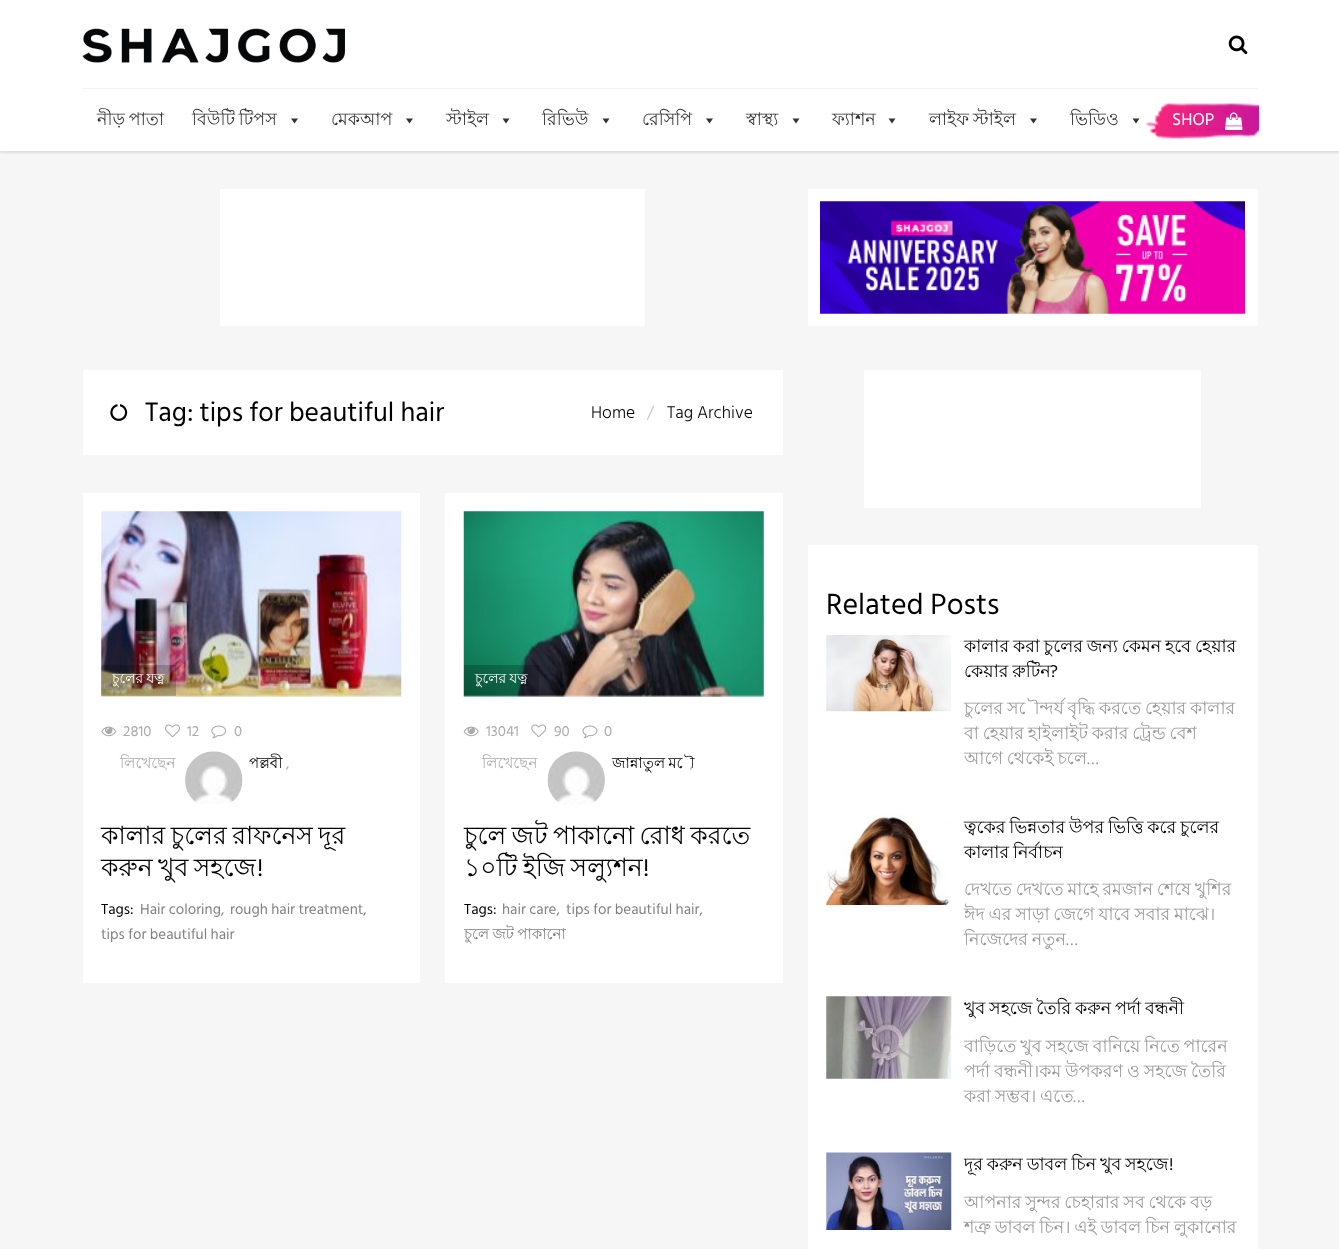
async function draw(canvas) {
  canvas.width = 1339;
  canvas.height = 1249;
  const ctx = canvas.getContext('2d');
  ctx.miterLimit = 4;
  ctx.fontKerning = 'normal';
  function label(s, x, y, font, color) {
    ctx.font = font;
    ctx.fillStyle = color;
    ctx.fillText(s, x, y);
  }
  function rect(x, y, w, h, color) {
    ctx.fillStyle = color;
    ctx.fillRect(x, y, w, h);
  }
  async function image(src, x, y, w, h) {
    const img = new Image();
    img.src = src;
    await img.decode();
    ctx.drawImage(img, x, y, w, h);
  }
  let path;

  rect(0, 0, 1339, 1249, '#f6f6f6');
  ctx.fillStyle = '#0000001a';
  ctx.filter = 'blur(1px)';
  ctx.beginPath();
  ctx.rect(0, 1, 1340, 152);
  ctx.fill();
  ctx.filter = 'none';
  rect(0, 0, 1339, 151, '#fff');
  rect(83, 88, 1175, 1, '#f2f2f2');
  await image('assets/img1.png', 82, 28, 263, 35);
  await image('assets/img2.png', 1228, 35, 20, 20);
  ctx.wordSpacing = '-1px';
  label('নীড় পাতা', 97, 125, '17.5px Lohit Bengali', '#333');
  label('বিউটি টিপস', 192, 125, '17.5px Lohit Bengali', '#333');
  path = new Path2D('M298 118.5L294.5 123.5L291 118.5Z');
  ctx.fill(path);
  ctx.wordSpacing = '0px';
  label('মেকআপ', 331, 125, '17.5px Lohit Bengali', '#333');
  path = new Path2D('M413 118.5L409.5 123.5L406 118.5Z');
  ctx.fill(path);
  label('স্টাইল', 446, 125, '17.5px Lohit Bengali', '#333');
  path = new Path2D('M509.5 118.5L506 123.5L502.5 118.5Z');
  ctx.fill(path);
  label('রিভিউ', 542, 125, '17.5px Lohit Bengali', '#333');
  path = new Path2D('M609.5 118.5L606 123.5L602.5 118.5Z');
  ctx.fill(path);
  label('রেসিপি', 642, 125, '17.5px Lohit Bengali', '#333');
  path = new Path2D('M713 118.5L709.5 123.5L706 118.5Z');
  ctx.fill(path);
  label('স্বাস্থ্য', 746, 125, '17.5px Lohit Bengali', '#333');
  path = new Path2D('M799.5 118.5L796 123.5L792.5 118.5Z');
  ctx.fill(path);
  label('ফ্যাশন', 832, 125, '17.5px Lohit Bengali', '#333');
  path = new Path2D('M895.5 118.5L892 123.5L888.5 118.5Z');
  ctx.fill(path);
  ctx.wordSpacing = '-1px';
  label('লাইফ স্টাইল', 929, 125, '17.5px Lohit Bengali', '#333');
  path = new Path2D('M1037 118.5L1033.5 123.5L1030 118.5Z');
  ctx.fill(path);
  ctx.wordSpacing = '0px';
  label('ভিডিও', 1070, 125, '17.5px Lohit Bengali', '#333');
  path = new Path2D('M1139.5 118.5L1136 123.5L1132.5 118.5Z');
  ctx.fill(path);
  await image('assets/img3.png', 1145, 103, 114, 36);
  label('SHOP', 1172, 125, '17.5px Hind Siliguri', '#fff');
  await image('assets/img4.png', 1225, 112, 18, 18);
  rect(220, 189, 425, 137, '#fff');
  rect(808, 189, 450, 137, '#fff');
  await image('assets/img5.png', 820, 201, 425, 113);
  rect(83, 370, 700, 85, '#fff');
  await image('assets/img6.png', 110, 404, 18, 17);
  label('Tag: tips for beautiful hair', 145, 421, '27.5px Hind Siliguri', '#000');
  label('Home', 591, 418, '300 17.5px Hind Siliguri', '#000');
  label('/', 647, 418, '300 17.5px Hind Siliguri', '#bfbfbf');
  label('Tag Archive', 667, 418, '300 17.5px Hind Siliguri', '#000');
  rect(83, 493, 337, 490, '#fff');
  await image('assets/img7.png', 101, 511, 301, 186);
  rect(101, 665, 75, 31, '#00000033');
  ctx.wordSpacing = '-1px';
  label('চুলের যত্ন', 112, 683, '14px Lohit Bengali', '#fff');
  await image('assets/img8.png', 101, 726, 16, 11);
  ctx.wordSpacing = '0px';
  label('2810', 123, 736, '15px Hind Siliguri', '#ababab');
  await image('assets/img9.png', 165, 724, 15, 14);
  label('12', 187, 736, '15px Hind Siliguri', '#ababab');
  await image('assets/img10.png', 211, 725, 16, 14);
  label('0', 234, 736, '15px Hind Siliguri', '#ababab');
  label('লিখেছেন', 120, 768, '15px Lohit Bengali', '#ababab');
  await image('assets/img11.png', 185, 751, 58, 53);
  label('পল্লবী', 249, 768, '15px Lohit Bengali', '#000');
  label(',', 286, 768, '15px Hind Siliguri', '#ababab');
  ctx.wordSpacing = '-1.5px';
  label('কালার চুলের রাফনেস দূর', 101, 844, '25px Lohit Bengali', '#000');
  label('করুন খুব সহজে', 101, 876, '25px Lohit Bengali', '#000');
  ctx.wordSpacing = '0px';
  label('!', 257, 876, '25px Hind Siliguri', '#000');
  label('Tags:', 101, 914, '15px Hind Siliguri', '#000');
  label('Hair coloring,', 140, 914, '15px Hind Siliguri', '#808080');
  label('rough hair treatment,', 230, 914, '15px Hind Siliguri', '#808080');
  label('tips for beautiful hair', 101, 939, '15px Hind Siliguri', '#808080');
  rect(445, 493, 338, 490, '#fff');
  await image('assets/img12.png', 463, 511, 301, 186);
  rect(464, 665, 75, 31, '#00000033');
  ctx.wordSpacing = '-1px';
  label('চুলের যত্ন', 475, 683, '14px Lohit Bengali', '#fff');
  await image('assets/img13.png', 463, 726, 16, 11);
  ctx.wordSpacing = '0px';
  label('13041', 486, 736, '15px Hind Siliguri', '#ababab');
  await image('assets/img14.png', 531, 724, 16, 14);
  label('90', 554, 736, '15px Hind Siliguri', '#ababab');
  await image('assets/img15.png', 582, 725, 16, 14);
  label('0', 604, 736, '15px Hind Siliguri', '#ababab');
  label('লিখেছেন', 482, 768, '15px Lohit Bengali', '#ababab');
  await image('assets/img16.png', 547, 751, 58, 54);
  ctx.wordSpacing = '-1px';
  label('জান্নাতুল মৌ', 612, 768, '15px Lohit Bengali', '#000');
  ctx.wordSpacing = '0px';
  label(',', 690, 768, '15px Hind Siliguri', '#ababab');
  ctx.wordSpacing = '-1.5px';
  label('চুলে জট পাকানো রোধ করতে', 464, 844, '25px Lohit Bengali', '#000');
  label('১০টি ইজি সল্যুশন', 464, 876, '25px Lohit Bengali', '#000');
  ctx.wordSpacing = '0px';
  label('!', 643, 876, '25px Hind Siliguri', '#000');
  label('Tags:', 464, 914, '15px Hind Siliguri', '#000');
  label('hair care,', 502, 914, '15px Hind Siliguri', '#808080');
  label('tips for beautiful hair,', 566, 914, '15px Hind Siliguri', '#808080');
  ctx.save();
  ctx.beginPath();
  ctx.rect(464, 899, 300, 50);
  ctx.clip();
  ctx.wordSpacing = '-1px';
  label('চুলে জট পাকানো', 464, 939, '15px Lohit Bengali', '#808080');
  ctx.restore();
  rect(864, 370, 337, 138, '#fff');
  rect(808, 545, 450, 704, '#fff');
  label('Related Posts', 826, 614, '30px Hind Siliguri', '#000');
  await image('assets/img17.png', 826, 635, 125, 77);
  ctx.wordSpacing = '-1px';
  label('কালার করা চুলের জন্য কেমন হবে হেয়ার', 964, 652, '17.5px Lohit Bengali', '#000');
  label('কেয়ার রুটিন', 964, 677, '17.5px Lohit Bengali', '#000');
  ctx.wordSpacing = '0px';
  label('?', 1050, 677, '17.5px Hind Siliguri', '#000');
  ctx.wordSpacing = '-1px';
  label('চুলের সৌন্দর্য বৃদ্ধি করতে হেয়ার কালার', 964, 714, '17.5px Lohit Bengali', '#999');
  label('বা হেয়ার হাইলাইট করার ট্রেন্ড বেশ', 964, 739, '17.5px Lohit Bengali', '#999');
  label('আগে থেকেই চলে', 964, 764, '17.5px Lohit Bengali', '#999');
  ctx.wordSpacing = '0px';
  label('…', 1087, 764, '300 17.5px Hind Siliguri', '#999');
  await image('assets/img18.png', 826, 815, 125, 90);
  ctx.wordSpacing = '-1px';
  label('ত্বকের ভিন্নতার উপর ভিত্তি করে চুলের', 964, 833, '17.5px Lohit Bengali', '#000');
  label('কালার নির্বাচন', 964, 858, '17.5px Lohit Bengali', '#000');
  label('দেখতে দেখতে মাহে রমজান শেষে খুশির', 964, 895, '17.5px Lohit Bengali', '#999');
  label('ঈদ এর সাড়া জেগে যাবে সবার মাঝে।', 964, 920, '17.5px Lohit Bengali', '#999');
  label('নিজেদের নতুন', 964, 945, '17.5px Lohit Bengali', '#999');
  ctx.wordSpacing = '0px';
  label('…', 1066, 945, '300 17.5px Hind Siliguri', '#999');
  await image('assets/img19.png', 826, 996, 126, 83);
  ctx.wordSpacing = '-1px';
  label('খুব সহজে তৈরি করুন পর্দা বন্ধনী', 964, 1014, '17.5px Lohit Bengali', '#000');
  label('বাড়িতে খুব সহজে বানিয়ে নিতে পারেন', 964, 1052, '17.5px Lohit Bengali', '#999');
  label('পর্দা বন্ধনী।কম উপকরণ ও সহজে তৈরি', 964, 1077, '17.5px Lohit Bengali', '#999');
  label('করা সম্ভব। এতে', 964, 1102, '17.5px Lohit Bengali', '#999');
  ctx.wordSpacing = '0px';
  label('…', 1073, 1102, '300 17.5px Hind Siliguri', '#999');
  await image('assets/img20.png', 826, 1152, 126, 78);
  ctx.wordSpacing = '-1px';
  label('দূর করুন ডাবল চিন খুব সহজে', 964, 1170, '17.5px Lohit Bengali', '#000');
  ctx.wordSpacing = '0px';
  label('!', 1169, 1170, '17.5px Hind Siliguri', '#000');
  ctx.wordSpacing = '-1px';
  label('আপনার সুন্দর চেহারার সব থেকে বড়', 964, 1208, '17.5px Lohit Bengali', '#999');
  label('শত্রু ডাবল চিন। এই ডাবল চিন লুকানোর', 964, 1233, '17.5px Lohit Bengali', '#999');
}

draw(document.querySelector('canvas'));
